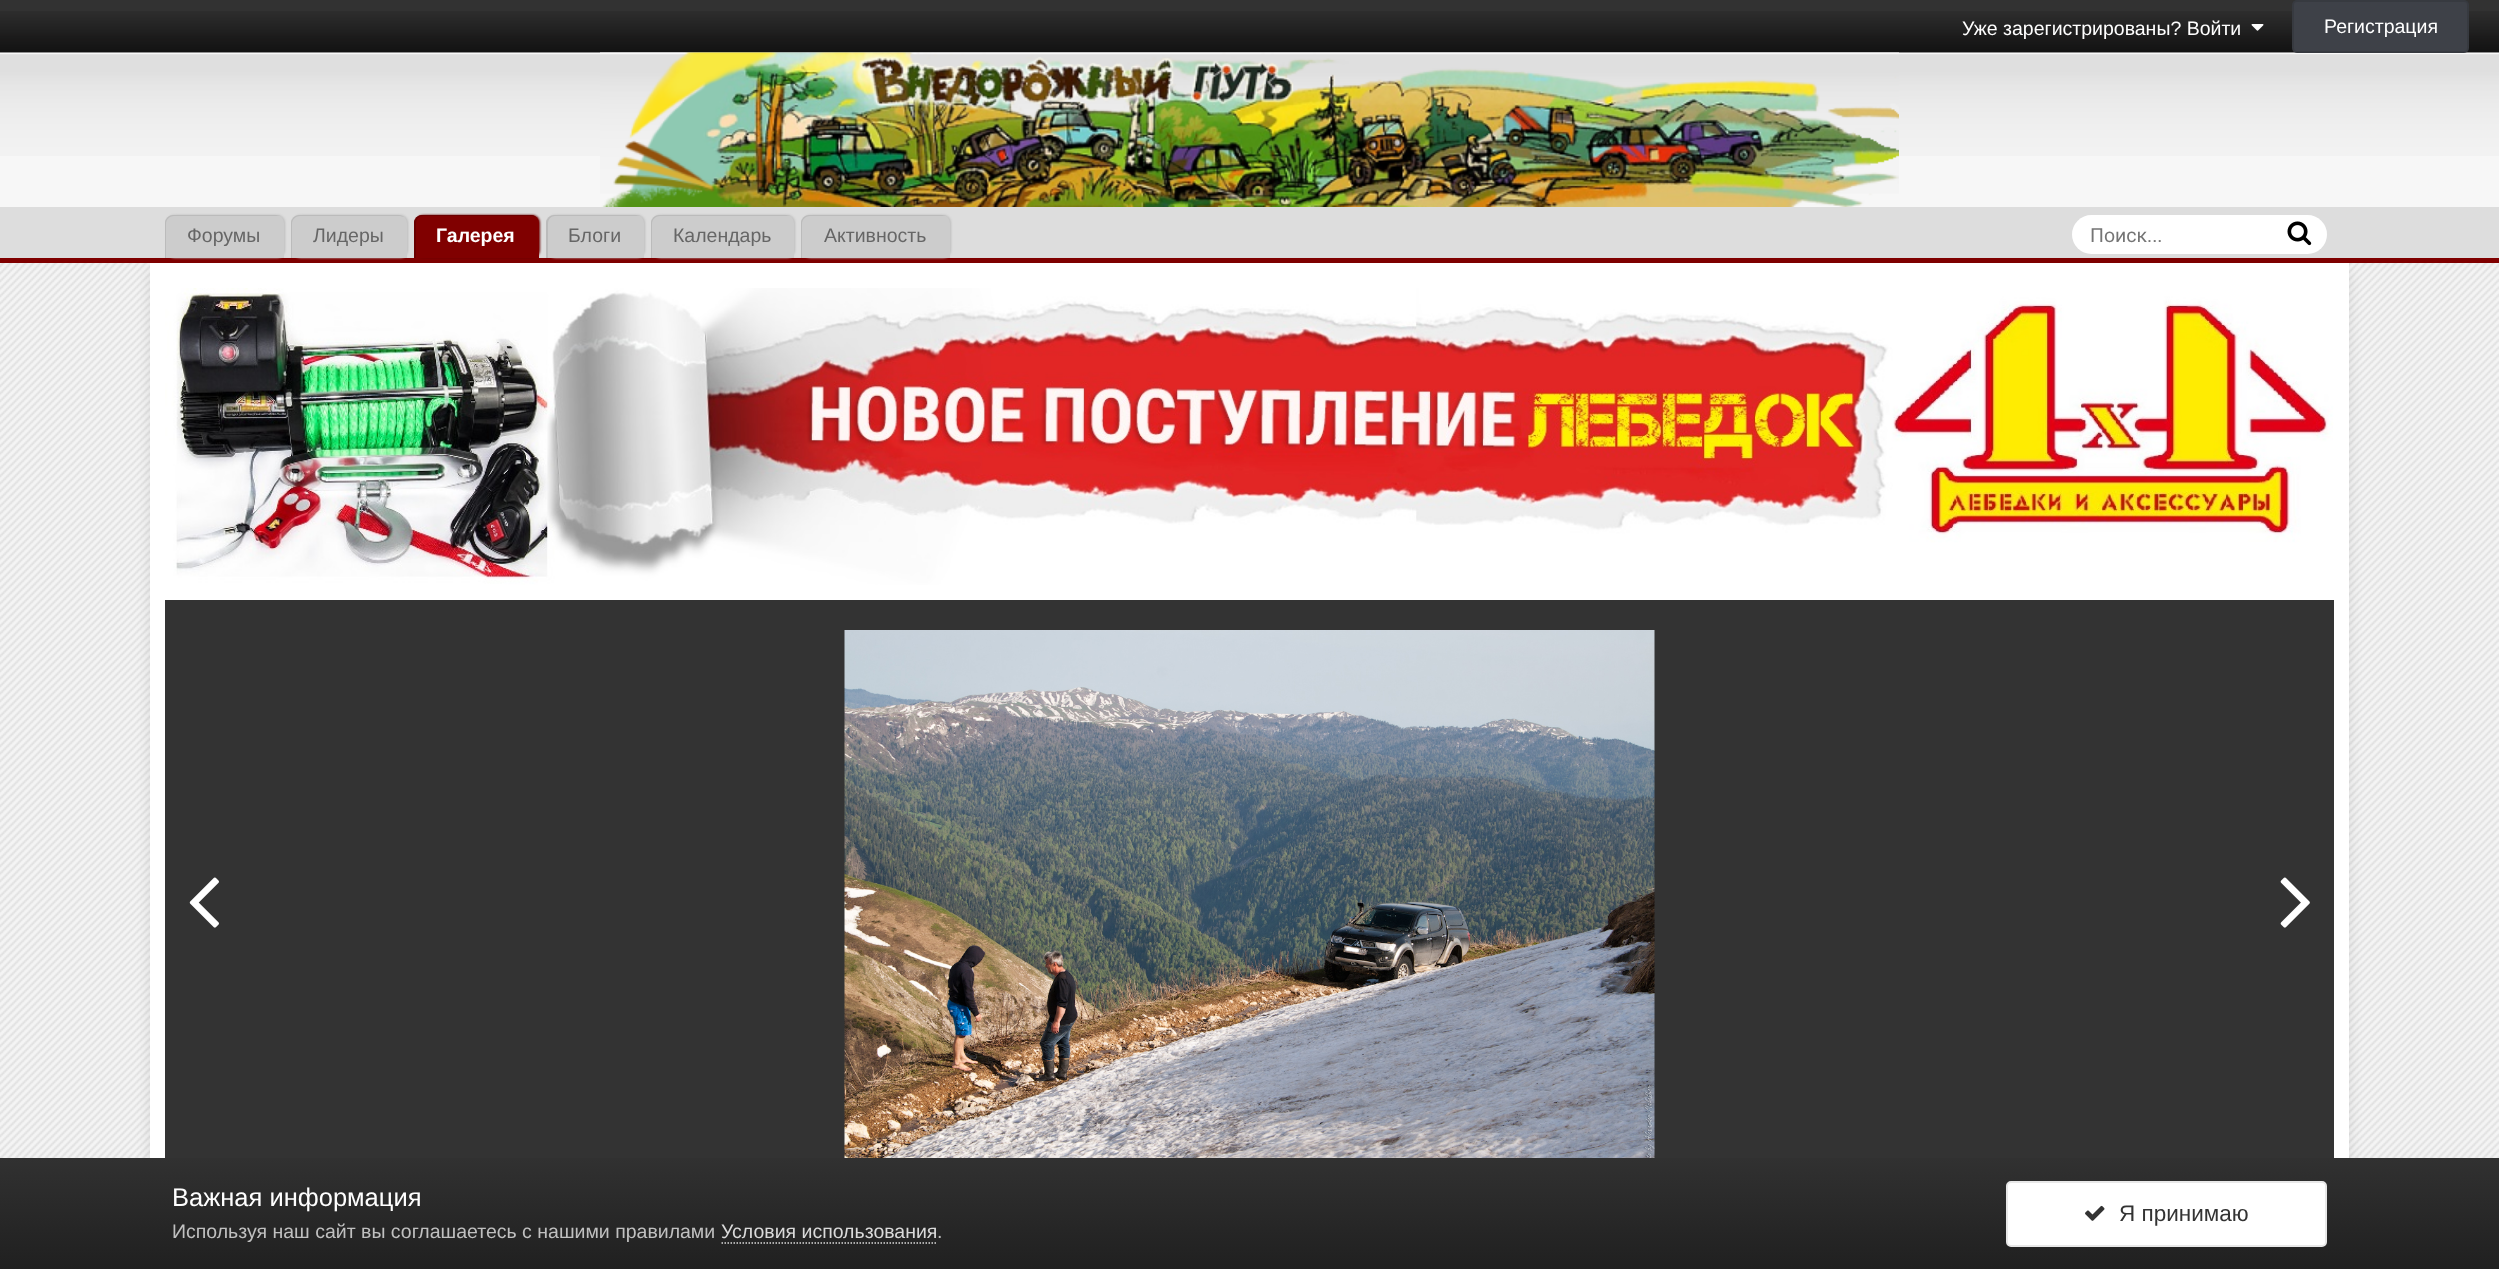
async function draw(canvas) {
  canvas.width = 2499;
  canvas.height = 1269;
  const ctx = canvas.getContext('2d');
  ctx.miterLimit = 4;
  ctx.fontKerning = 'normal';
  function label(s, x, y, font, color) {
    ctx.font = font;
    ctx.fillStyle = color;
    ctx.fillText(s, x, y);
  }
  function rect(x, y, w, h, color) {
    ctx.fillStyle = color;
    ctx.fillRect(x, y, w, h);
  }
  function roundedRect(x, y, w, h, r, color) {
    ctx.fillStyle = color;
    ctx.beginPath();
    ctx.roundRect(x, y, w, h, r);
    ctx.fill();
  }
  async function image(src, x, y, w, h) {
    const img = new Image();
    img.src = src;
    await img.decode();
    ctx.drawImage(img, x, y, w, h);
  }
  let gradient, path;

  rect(0, 0, 2499, 1269, '#e2e2e2');
  await image('assets/img1.png', 0, 263, 2499, 895);
  rect(0, 258, 2499, 5, '#800000');
  rect(0, 0, 2499, 53, '#323232');
  await image('assets/img2.png', 0, 11, 2499, 42);
  label('Уже зарегистрированы? Войти', 1962, 35, '19.5px Liberation Sans', '#fff');
  await image('assets/img3.png', 2251, 24, 13, 7);
  await image('assets/img4.png', 0, 52, 2499, 104);
  roundedRect(2292, 0, 177, 53, 5, '#3e4148');
  ctx.beginPath();
  ctx.roundRect(2293, 1, 175, 51, 4);
  ctx.strokeStyle = '#0000001a';
  ctx.lineWidth = 2;
  ctx.stroke();
  label('Регистрация', 2324, 33, '19.5px Liberation Sans', '#fff');
  rect(0, 156, 2499, 51, '#f7f7f7');
  await image('assets/img5.png', 600, 52, 1299, 155);
  rect(0, 207, 2499, 51, '#ddd');
  ctx.fillStyle = '#bbb';
  ctx.filter = 'blur(1px)';
  ctx.beginPath();
  ctx.roundRect(167, 215, 118, 43, 8);
  ctx.fill();
  ctx.filter = 'none';
  ctx.fillStyle = '#0000001a';
  ctx.filter = 'blur(7px)';
  ctx.beginPath();
  ctx.rect(150, 270, 2199, 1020);
  ctx.fill();
  ctx.filter = 'none';
  ctx.fillStyle = '#ccc';
  ctx.beginPath();
  ctx.roundRect(165, 215, 119, 43, [8, 8, 0, 0]);
  ctx.fill();
  ctx.fillStyle = '#bbb';
  path = new Path2D('M174 216H278H281C279 216 278 215 276 215H173C169 215 165 219 165 223V258H166V224C166 219 170 216 174 216Z');
  ctx.fill(path);
  label('Форумы', 187, 242, '19.5px Liberation Sans', '#666');
  ctx.fillStyle = '#bbb';
  ctx.filter = 'blur(1px)';
  ctx.beginPath();
  ctx.roundRect(293, 215, 115, 43, 8);
  ctx.fill();
  ctx.filter = 'none';
  ctx.fillStyle = '#ccc';
  ctx.beginPath();
  ctx.roundRect(291, 215, 116, 43, [8, 8, 0, 0]);
  ctx.fill();
  ctx.fillStyle = '#bbb';
  path = new Path2D('M300 216H400L404 217C403 216 401 215 399 215H299C295 215 291 219 291 223V258H292V224C292 219 296 216 300 216Z');
  ctx.fill(path);
  label('Лидеры', 313, 242, '19.5px Liberation Sans', '#666');
  ctx.fillStyle = '#6a0000';
  ctx.filter = 'blur(1px)';
  ctx.beginPath();
  ctx.roundRect(416, 215, 124, 43, 8);
  ctx.fill();
  ctx.filter = 'none';
  ctx.fillStyle = '#800000';
  ctx.beginPath();
  ctx.roundRect(414, 215, 125, 43, [8, 8, 0, 0]);
  ctx.fill();
  ctx.fillStyle = '#6a0000';
  path = new Path2D('M423 216H532L536 217C535 216 533 215 531 215H422C418 215 414 219 414 223V258H416V224C416 219 419 216 423 216Z');
  ctx.fill(path);
  label('Галерея', 436, 242, 'bold 19.5px Liberation Sans', '#fff');
  ctx.fillStyle = '#bbb';
  ctx.filter = 'blur(1px)';
  ctx.beginPath();
  ctx.roundRect(548, 215, 97, 43, 8);
  ctx.fill();
  ctx.filter = 'none';
  ctx.fillStyle = '#ccc';
  ctx.beginPath();
  ctx.roundRect(546, 215, 98, 43, [8, 8, 0, 0]);
  ctx.fill();
  ctx.fillStyle = '#bbb';
  path = new Path2D('M555 216H638H641C639 216 638 215 636 215H554C550 215 546 219 546 223V258H548V224C548 219 551 216 555 216Z');
  ctx.fill(path);
  label('Блоги', 568, 242, '19.5px Liberation Sans', '#666');
  ctx.fillStyle = '#bbb';
  ctx.filter = 'blur(1px)';
  ctx.beginPath();
  ctx.roundRect(653, 215, 142, 43, 8);
  ctx.fill();
  ctx.filter = 'none';
  ctx.fillStyle = '#ccc';
  ctx.beginPath();
  ctx.roundRect(651, 215, 143, 43, [8, 8, 0, 0]);
  ctx.fill();
  ctx.fillStyle = '#bbb';
  path = new Path2D('M660 216H788H791C789 216 788 215 786 215H659C655 215 651 219 651 223V258H652V224C652 219 656 216 660 216Z');
  ctx.fill(path);
  label('Календарь', 673, 242, '19.5px Liberation Sans', '#666');
  ctx.fillStyle = '#bbb';
  ctx.filter = 'blur(1px)';
  ctx.beginPath();
  ctx.roundRect(803, 215, 148, 43, 8);
  ctx.fill();
  ctx.filter = 'none';
  ctx.fillStyle = '#ccc';
  ctx.beginPath();
  ctx.roundRect(801, 215, 149, 43, [8, 8, 0, 0]);
  ctx.fill();
  ctx.fillStyle = '#bbb';
  path = new Path2D('M810 216H944H947C945 216 944 215 942 215H809C805 215 801 219 801 223V258H802V224C802 219 806 216 810 216Z');
  ctx.fill(path);
  label('Активность', 824, 242, '19.5px Liberation Sans', '#666');
  roundedRect(2072, 215, 255, 39, 19.5, '#fff');
  label('Поиск...', 2090, 242, '19.5px Roboto', '#757575');
  await image('assets/img6.png', 2287, 221, 25, 25);
  rect(150, 263, 2199, 895, '#fff');
  await image('assets/img7.png', 165, 288, 2169, 297);
  rect(165, 600, 2169, 558, '#333');
  await image('assets/img8.png', 844, 630, 811, 528);
  await image('assets/img9.png', 189, 877, 30, 51);
  await image('assets/img10.png', 2280, 877, 30, 51);
  gradient = ctx.createLinearGradient(1250, 1158, 1250, 1269);
  gradient.addColorStop(0, '#313131');
  gradient.addColorStop(1, '#202020');
  ctx.fillStyle = gradient;
  ctx.fillRect(0, 1158, 2499, 111);
  label('Важная информация', 172, 1206, '25.5px Liberation Sans', '#fff');
  label('Используя наш сайт вы соглашаетесь с нашими правилами', 172, 1238, '19.5px Liberation Sans', '#c0c0c0');
  label('Условия использования', 721, 1238, '19.5px Liberation Sans', '#dadada');
  path = new Path2D('M721.5 1243H937.5');
  ctx.strokeStyle = '#dadada';
  ctx.lineWidth = 1.5;
  ctx.setLineDash([1.5, 1.5]);
  ctx.stroke(path);
  label('.', 937, 1238, '19.5px Liberation Sans', '#c0c0c0');
  ctx.fillStyle = '#fff';
  ctx.beginPath();
  ctx.roundRect(2007, 1182, 319, 64, 4);
  ctx.fill();
  ctx.strokeStyle = '#e8e8e8';
  ctx.lineWidth = 2;
  ctx.setLineDash([]);
  ctx.stroke();
  await image('assets/img11.png', 2085, 1205, 20, 16);
  label('Я принимаю', 2119, 1221, '22.5px Liberation Sans', '#333');
}

draw(document.querySelector('canvas'));
